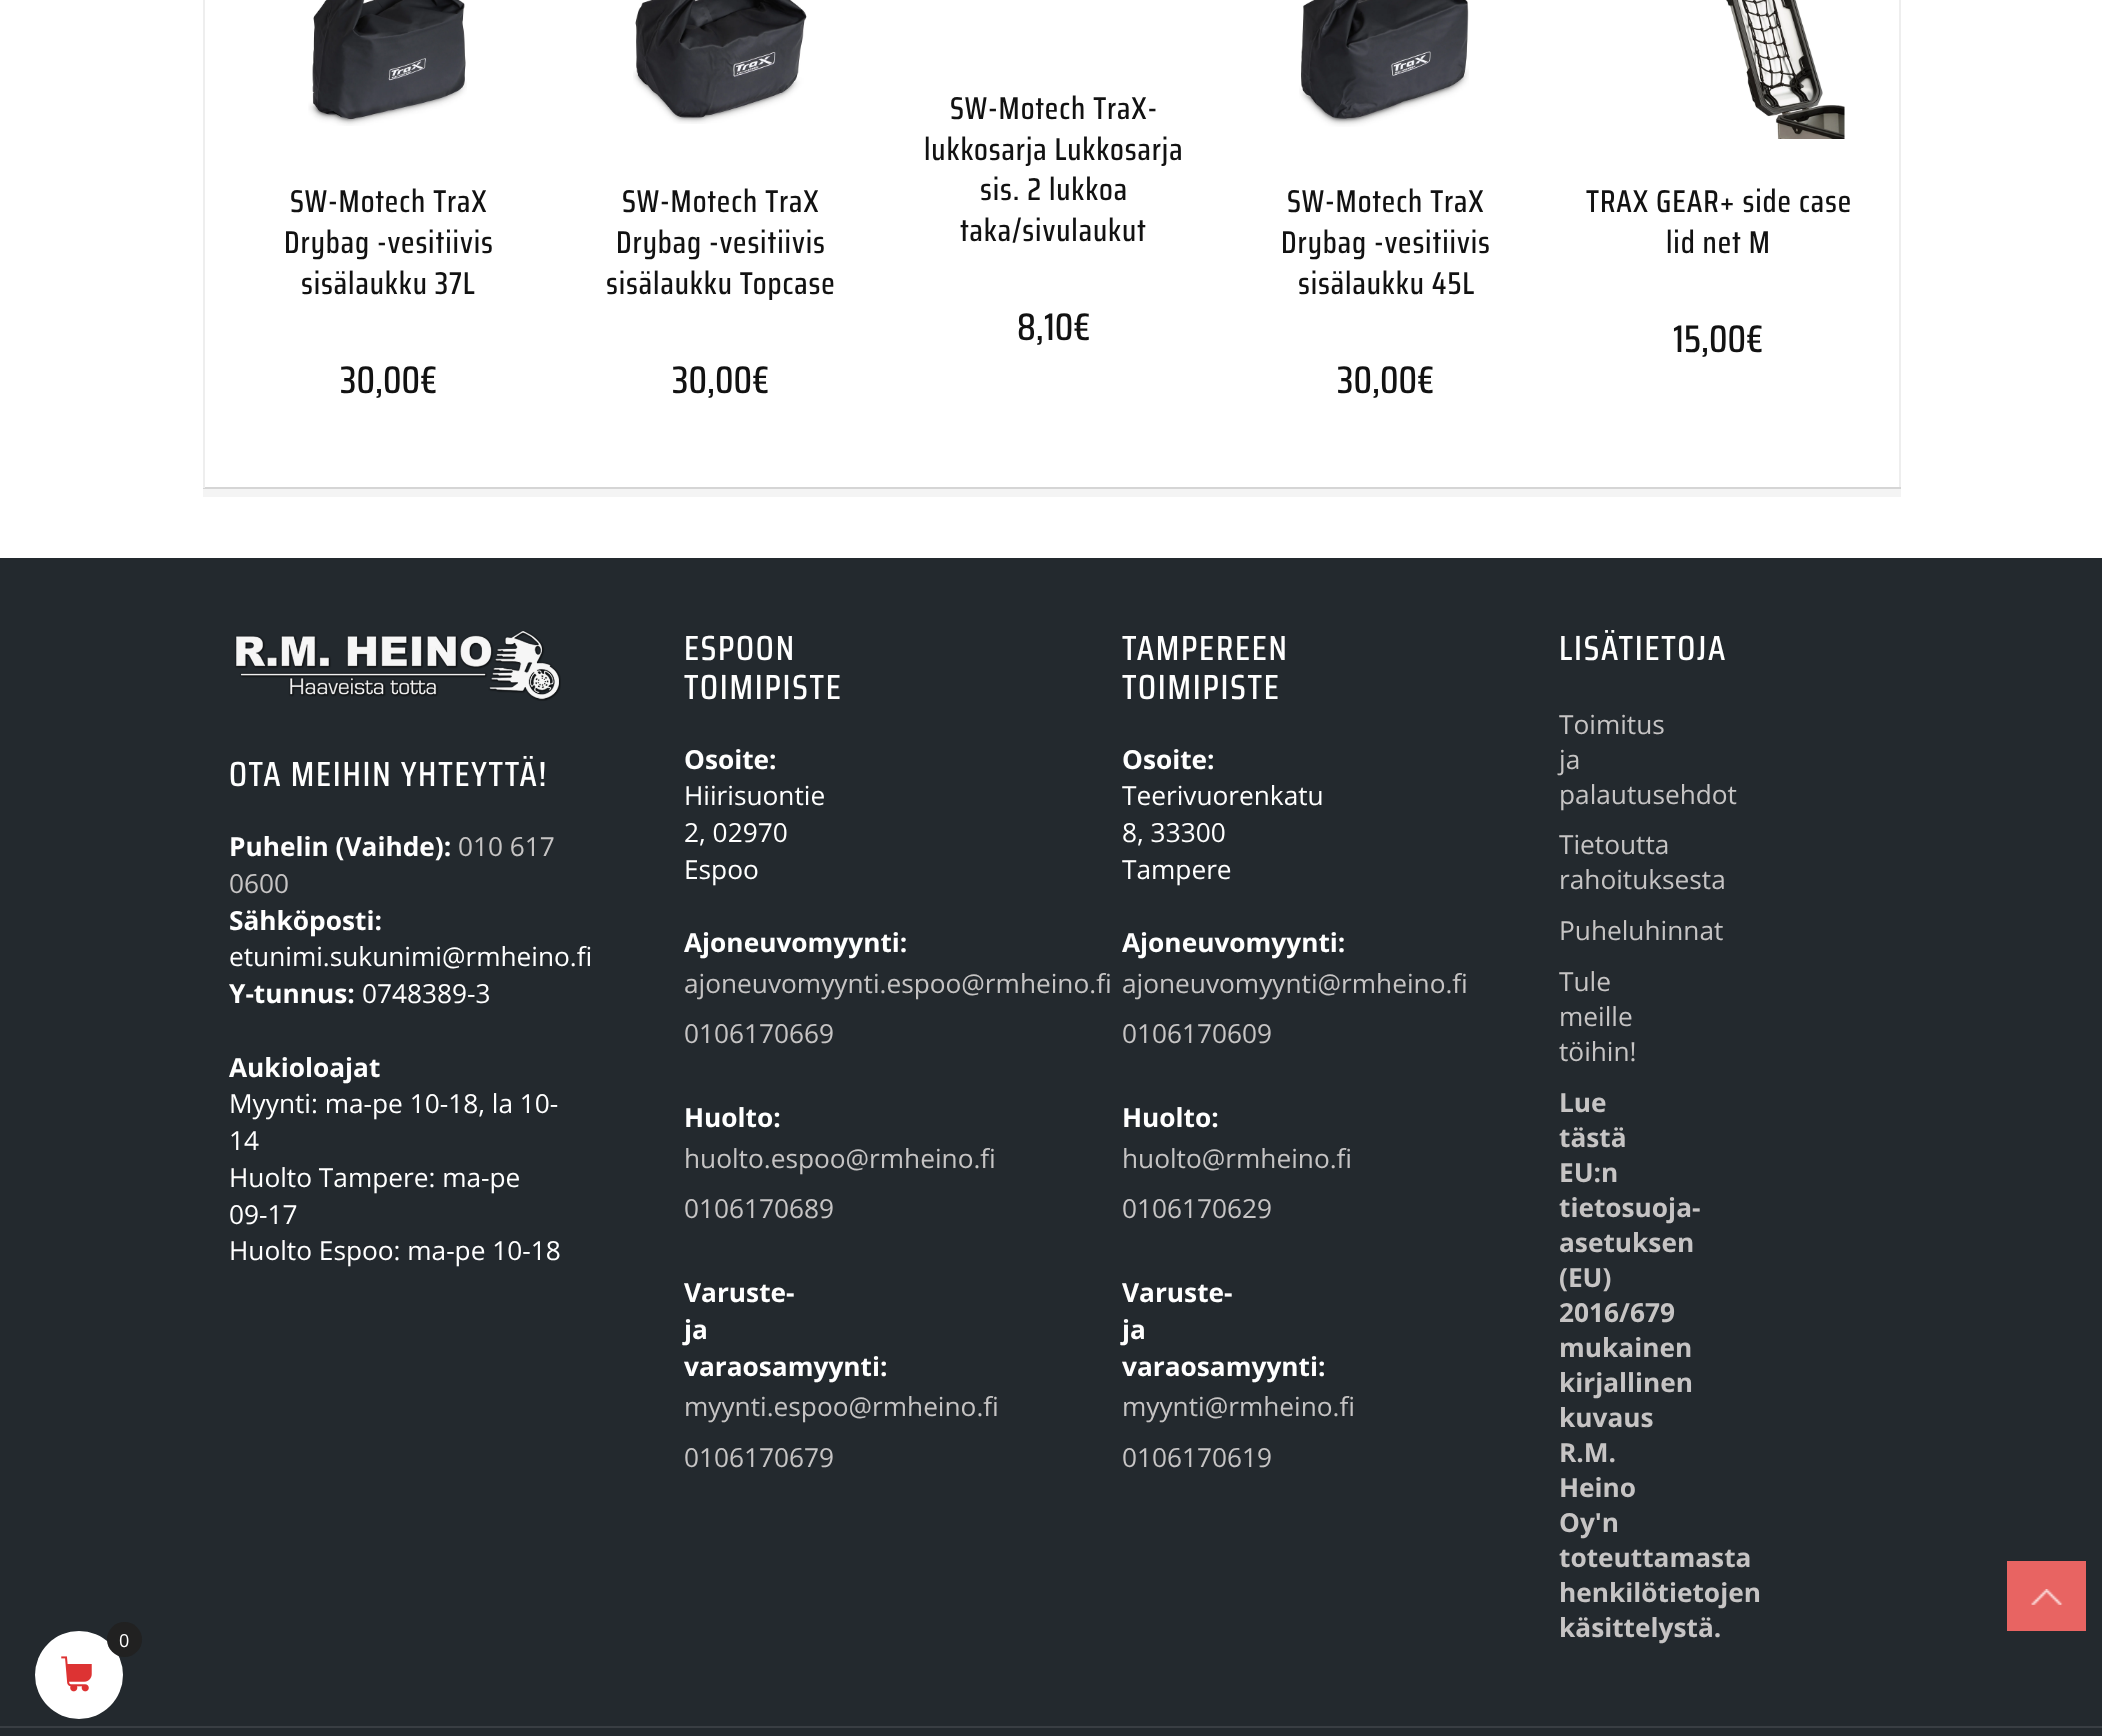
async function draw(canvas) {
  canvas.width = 2102;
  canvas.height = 1736;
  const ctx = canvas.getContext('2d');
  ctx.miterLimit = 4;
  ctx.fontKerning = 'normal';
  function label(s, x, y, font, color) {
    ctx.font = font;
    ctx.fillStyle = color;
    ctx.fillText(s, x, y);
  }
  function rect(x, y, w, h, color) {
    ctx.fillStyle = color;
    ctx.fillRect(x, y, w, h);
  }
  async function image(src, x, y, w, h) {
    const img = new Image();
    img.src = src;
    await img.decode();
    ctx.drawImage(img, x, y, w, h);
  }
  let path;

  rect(0, 0, 2102, 1736, '#fff');
  ctx.fillStyle = '#f4f4f4';
  path = new Path2D('M203 488V497H1901V-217H1900V488Z');
  ctx.fill(path);
  rect(1899, 0, 2, 488, '#eee');
  rect(203, 487, 1698, 2, '#d5d5d5');
  rect(203, 0, 2, 488, '#eee');
  await image('assets/img1.png', 308, 0, 159, 126);
  ctx.letterSpacing = '0.9px';
  label('SW-Motech TraX', 290, 212, '500 31.5px Saira Condensed', '#121212');
  label('Drybag -vesitiivis', 284, 253, '500 31.5px Saira Condensed', '#121212');
  label('sisälaukku 37L', 301, 294, '500 31.5px Saira Condensed', '#121212');
  ctx.letterSpacing = '0px';
  label('30,00€', 340, 393, '500 38.5px Saira Condensed', '#121212');
  await image('assets/img2.png', 633, 0, 174, 124);
  ctx.letterSpacing = '0.9px';
  label('SW-Motech TraX', 622, 212, '500 31.5px Saira Condensed', '#121212');
  label('Drybag -vesitiivis', 616, 253, '500 31.5px Saira Condensed', '#121212');
  label('sisälaukku Topcase', 606, 294, '500 31.5px Saira Condensed', '#121212');
  ctx.letterSpacing = '0px';
  label('30,00€', 672, 393, '500 38.5px Saira Condensed', '#121212');
  ctx.letterSpacing = '0.9px';
  label('SW-Motech TraX-', 950, 119, '500 31.5px Saira Condensed', '#121212');
  label('lukkosarja Lukkosarja', 924, 160, '500 31.5px Saira Condensed', '#121212');
  label('sis. 2 lukkoa', 980, 200, '500 31.5px Saira Condensed', '#121212');
  label('taka/sivulaukut', 960, 241, '500 31.5px Saira Condensed', '#121212');
  ctx.letterSpacing = '0px';
  label('8,10€', 1017, 340, '500 38.5px Saira Condensed', '#121212');
  await image('assets/img3.png', 1299, 0, 170, 127);
  ctx.letterSpacing = '0.9px';
  label('SW-Motech TraX', 1287, 212, '500 31.5px Saira Condensed', '#121212');
  label('Drybag -vesitiivis', 1281, 253, '500 31.5px Saira Condensed', '#121212');
  label('sisälaukku 45L', 1298, 294, '500 31.5px Saira Condensed', '#121212');
  ctx.letterSpacing = '0px';
  label('30,00€', 1337, 393, '500 38.5px Saira Condensed', '#121212');
  await image('assets/img4.png', 1726, 0, 119, 139);
  ctx.letterSpacing = '0.9px';
  label('TRAX GEAR+ side case', 1586, 212, '500 31.5px Saira Condensed', '#121212');
  label('lid net M', 1666, 253, '500 31.5px Saira Condensed', '#121212');
  ctx.letterSpacing = '0px';
  label('15,00€', 1673, 352, '500 38.5px Saira Condensed', '#121212');
  rect(0, 558, 2102, 1178, '#23292e');
  await image('assets/img5.png', 235, 630, 326, 71);
  ctx.letterSpacing = '1.75px';
  label('OTA MEIHIN YHTEYTTÄ!', 229, 786, '500 35px Saira Condensed', '#fff');
  ctx.letterSpacing = '0px';
  label('Puhelin (Vaihde):', 229, 856, 'bold 26.25px Open Sans', '#fff');
  label('010 617', 458, 856, '26.25px Open Sans', '#c6c4c4');
  label('0600', 229, 893, '26.25px Open Sans', '#c6c4c4');
  label('Sähköposti:', 229, 930, 'bold 26.25px Open Sans', '#fff');
  label('etunimi.sukunimi@rmheino.fi', 229, 966, '26.25px Open Sans', '#fff');
  label('Y-tunnus:', 229, 1003, 'bold 26.25px Open Sans', '#fff');
  label('0748389-3', 362, 1003, '26.25px Open Sans', '#fff');
  label('Aukioloajat', 229, 1077, 'bold 26.25px Open Sans', '#fff');
  label('Myynti: ma-pe 10-18, la 10-', 229, 1113, '26.25px Open Sans', '#fff');
  label('14', 229, 1150, '26.25px Open Sans', '#fff');
  label('Huolto Tampere: ma-pe', 229, 1187, '26.25px Open Sans', '#fff');
  label('09-17', 229, 1224, '26.25px Open Sans', '#fff');
  label('Huolto Espoo: ma-pe 10-18', 229, 1260, '26.25px Open Sans', '#fff');
  ctx.letterSpacing = '1.75px';
  label('ESPOON', 684, 660, '500 35px Saira Condensed', '#fff');
  label('TOIMIPISTE', 684, 699, '500 35px Saira Condensed', '#fff');
  ctx.letterSpacing = '0px';
  label('Osoite:', 684, 769, 'bold 26.25px Open Sans', '#fff');
  label('Hiirisuontie', 684, 805, '26.25px Open Sans', '#fff');
  label('2, 02970', 684, 842, '26.25px Open Sans', '#fff');
  label('Espoo', 684, 879, '26.25px Open Sans', '#fff');
  label('Ajoneuvomyynti:', 684, 952, 'bold 26.25px Open Sans', '#fff');
  label('ajoneuvomyynti.espoo@rmheino.fi', 684, 993, '26.25px Open Sans', '#c6c4c4');
  label('0106170669', 684, 1043, '26.25px Open Sans', '#c6c4c4');
  label('Huolto:', 684, 1127, 'bold 26.25px Open Sans', '#fff');
  label('huolto.espoo@rmheino.fi', 684, 1168, '26.25px Open Sans', '#c6c4c4');
  label('0106170689', 684, 1218, '26.25px Open Sans', '#c6c4c4');
  label('Varuste-', 684, 1302, 'bold 26.25px Open Sans', '#fff');
  label('ja', 684, 1339, 'bold 26.25px Open Sans', '#fff');
  label('varaosamyynti:', 684, 1376, 'bold 26.25px Open Sans', '#fff');
  label('myynti.espoo@rmheino.fi', 684, 1416, '26.25px Open Sans', '#c6c4c4');
  label('0106170679', 684, 1467, '26.25px Open Sans', '#c6c4c4');
  ctx.letterSpacing = '1.75px';
  label('TAMPEREEN', 1122, 660, '500 35px Saira Condensed', '#fff');
  label('TOIMIPISTE', 1122, 699, '500 35px Saira Condensed', '#fff');
  ctx.letterSpacing = '0px';
  label('Osoite:', 1122, 769, 'bold 26.25px Open Sans', '#fff');
  label('Teerivuorenkatu', 1122, 805, '26.25px Open Sans', '#fff');
  label('8, 33300', 1122, 842, '26.25px Open Sans', '#fff');
  label('Tampere', 1122, 879, '26.25px Open Sans', '#fff');
  label('Ajoneuvomyynti:', 1122, 952, 'bold 26.25px Open Sans', '#fff');
  label('ajoneuvomyynti@rmheino.fi', 1122, 993, '26.25px Open Sans', '#c6c4c4');
  label('0106170609', 1122, 1043, '26.25px Open Sans', '#c6c4c4');
  label('Huolto:', 1122, 1127, 'bold 26.25px Open Sans', '#fff');
  label('huolto@rmheino.fi', 1122, 1168, '26.25px Open Sans', '#c6c4c4');
  label('0106170629', 1122, 1218, '26.25px Open Sans', '#c6c4c4');
  label('Varuste-', 1122, 1302, 'bold 26.25px Open Sans', '#fff');
  label('ja', 1122, 1339, 'bold 26.25px Open Sans', '#fff');
  label('varaosamyynti:', 1122, 1376, 'bold 26.25px Open Sans', '#fff');
  label('myynti@rmheino.fi', 1122, 1416, '26.25px Open Sans', '#c6c4c4');
  label('0106170619', 1122, 1467, '26.25px Open Sans', '#c6c4c4');
  ctx.letterSpacing = '1.75px';
  label('LISÄTIETOJA', 1559, 660, '500 35px Saira Condensed', '#fff');
  ctx.letterSpacing = '0px';
  label('Toimitus', 1559, 734, '26.25px Open Sans', '#c6c4c4');
  label('ja', 1559, 769, '26.25px Open Sans', '#c6c4c4');
  label('palautusehdot', 1559, 804, '26.25px Open Sans', '#c6c4c4');
  label('Tietoutta', 1559, 854, '26.25px Open Sans', '#c6c4c4');
  label('rahoituksesta', 1559, 889, '26.25px Open Sans', '#c6c4c4');
  label('Puheluhinnat', 1559, 940, '26.25px Open Sans', '#c6c4c4');
  label('Tule', 1559, 991, '26.25px Open Sans', '#c6c4c4');
  label('meille', 1559, 1026, '26.25px Open Sans', '#c6c4c4');
  label('töihin!', 1559, 1061, '26.25px Open Sans', '#c6c4c4');
  label('Lue', 1559, 1112, 'bold 26.25px Open Sans', '#c6c4c4');
  label('tästä', 1559, 1147, 'bold 26.25px Open Sans', '#c6c4c4');
  label('EU:n', 1559, 1182, 'bold 26.25px Open Sans', '#c6c4c4');
  label('tietosuoja-', 1559, 1217, 'bold 26.25px Open Sans', '#c6c4c4');
  label('asetuksen', 1559, 1252, 'bold 26.25px Open Sans', '#c6c4c4');
  label('(EU)', 1559, 1287, 'bold 26.25px Open Sans', '#c6c4c4');
  label('2016/679', 1559, 1322, 'bold 26.25px Open Sans', '#c6c4c4');
  label('mukainen', 1559, 1357, 'bold 26.25px Open Sans', '#c6c4c4');
  label('kirjallinen', 1559, 1392, 'bold 26.25px Open Sans', '#c6c4c4');
  label('kuvaus', 1559, 1427, 'bold 26.25px Open Sans', '#c6c4c4');
  label('R.M.', 1559, 1462, 'bold 26.25px Open Sans', '#c6c4c4');
  label('Heino', 1559, 1497, 'bold 26.25px Open Sans', '#c6c4c4');
  label('Oy\'n', 1559, 1532, 'bold 26.25px Open Sans', '#c6c4c4');
  label('toteuttamasta', 1559, 1567, 'bold 26.25px Open Sans', '#c6c4c4');
  label('henkilötietojen', 1559, 1602, 'bold 26.25px Open Sans', '#c6c4c4');
  label('käsittelystä.', 1559, 1637, 'bold 26.25px Open Sans', '#c6c4c4');
  rect(0, 1726, 2102, 2, '#393e43');
  rect(2007, 1561, 79, 70, '#e86462');
  await image('assets/img6.png', 2031, 1589, 32, 16);
  ctx.fillStyle = '#fff';
  ctx.beginPath();
  ctx.arc(79, 1675, 44, 0, 2 * Math.PI);
  ctx.fill();
  ctx.fillStyle = '#212121';
  ctx.beginPath();
  ctx.arc(124.5, 1639.5, 17.5, 0, 2 * Math.PI);
  ctx.fill();
  label('0', 119, 1647, '18px Open Sans', '#fff');
  await image('assets/img7.png', 61, 1656, 31, 36);
}

draw(document.querySelector('canvas'));
